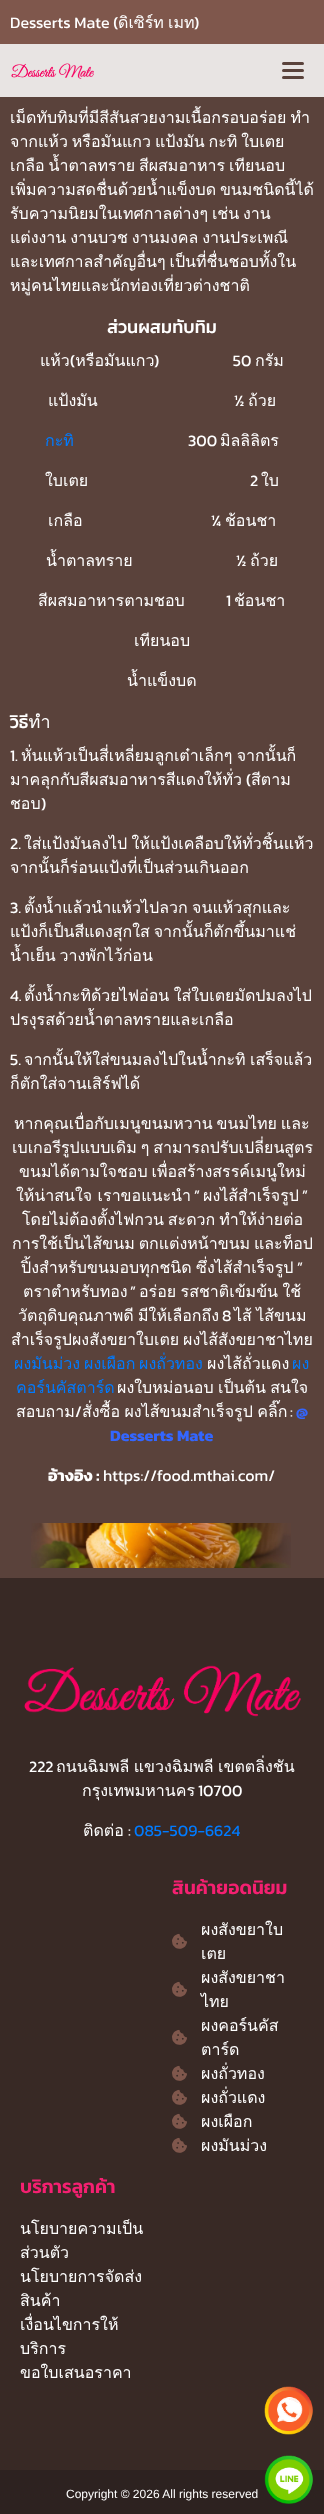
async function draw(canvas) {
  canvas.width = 324;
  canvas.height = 2514;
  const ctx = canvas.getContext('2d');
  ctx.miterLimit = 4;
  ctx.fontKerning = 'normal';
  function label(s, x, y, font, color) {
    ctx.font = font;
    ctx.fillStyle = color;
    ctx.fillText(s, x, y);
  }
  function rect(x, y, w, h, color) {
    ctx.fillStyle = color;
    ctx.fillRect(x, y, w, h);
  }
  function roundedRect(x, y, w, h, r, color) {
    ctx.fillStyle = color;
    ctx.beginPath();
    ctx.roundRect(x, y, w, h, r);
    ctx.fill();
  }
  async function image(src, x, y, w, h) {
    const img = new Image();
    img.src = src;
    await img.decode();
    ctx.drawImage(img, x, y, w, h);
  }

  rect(0, 0, 324, 2514, '#5a423b');
  rect(0, 44, 324, 53, '#ffffffdb');
  rect(0, 0, 324, 44, '#7f574c');
  label('Desserts Mate (', 10, 28, '16px Kanit', '#fff');
  label('ดิเซิร์ท', 118, 28, '16px Loma', '#fff');
  label('เมท', 168, 28, '16px Loma', '#fff');
  label(')', 194, 28, '16px Kanit', '#fff');
  await image('assets/img1.png', 11, 63, 83, 16);
  roundedRect(282, 69, 22, 3, 1.5, '#5a423b');
  roundedRect(282, 62, 22, 3, 1.5, '#5a423b');
  roundedRect(282, 76, 22, 3, 1.5, '#5a423b');
  ctx.wordSpacing = '-1.5px';
  label('เม็ดทับทิมที่มีสีสันสวยงามเนื้อกรอบอร่อย ทำ', 10, 123, '16px Loma', '#fff');
  label('จากแห้ว หรือมันแกว แป้งมัน กะทิ ใบเตย', 10, 147, '16px Loma', '#fff');
  label('เกลือ น้ำตาลทราย สีผสมอาหาร เทียนอบ', 10, 171, '16px Loma', '#fff');
  label('เพิ่มความสดชื่นด้วยน้ำแข็งบด ขนมชนิดนี้ได้', 10, 195, '16px Loma', '#fff');
  label('รับความนิยมในเทศกาลต่างๆ เช่น งาน', 10, 219, '16px Loma', '#fff');
  label('แต่งงาน งานบวช งานมงคล งานประเพณี', 10, 243, '16px Loma', '#fff');
  label('และเทศกาลสำคัญอื่นๆ เป็นที่ชื่นชอบทั้งใน', 10, 267, '16px Loma', '#fff');
  ctx.wordSpacing = '0px';
  label('หมู่คนไทยและนักท่องเที่ยวต่างชาติ', 10, 291, '16px Loma', '#fff');
  label('ส่วนผสมทับทิม', 107, 333, '500 18px Kanit', '#fff');
  label('แห้ว หรือมันแกว', 40, 366, '16px Loma', '#fff');
  label('กรัม', 255, 366, '16px Loma', '#fff');
  label('(', 70, 366, '16px Kanit', '#fff');
  label(')                    50', 154, 366, '16px Kanit', '#fff');
  label('แป้งมัน', 48, 406, '16px Loma', '#fff');
  label('½', 234, 406, '16px Kanit', '#fff');
  label('ถ้วย', 248, 406, '16px Loma', '#fff');
  label('กะทิ', 45, 446, '16px Loma', '#007bff');
  label('300', 188, 446, '16px Kanit', '#fff');
  label('มิลลิลิตร', 220, 446, '16px Loma', '#fff');
  label('ใบเตย', 45, 486, '16px Loma', '#fff');
  label('2', 250, 486, '16px Kanit', '#fff');
  label('ใบ', 261, 486, '16px Loma', '#fff');
  label('เกลือ', 48, 526, '16px Loma', '#fff');
  label('¼', 211, 526, '16px Kanit', '#fff');
  label('ช้อนชา', 225, 526, '16px Loma', '#fff');
  label('น้ำตาลทราย', 46, 566, '16px Loma', '#fff');
  label('½', 236, 566, '16px Kanit', '#fff');
  label('ถ้วย', 250, 566, '16px Loma', '#fff');
  label('สีผสมอาหารตามชอบ', 38, 606, '16px Loma', '#fff');
  label('1', 226, 606, '16px Kanit', '#fff');
  label('ช้อนชา', 234, 606, '16px Loma', '#fff');
  label('เทียนอบ', 134, 646, '16px Loma', '#fff');
  label('น้ำแข็งบด', 127, 686, '16px Loma', '#fff');
  label('วิธีทำ', 10, 728, '500 18px Kanit', '#fff');
  label('1.', 10, 761, '16px Kanit', '#fff');
  ctx.wordSpacing = '-1px';
  label('หั่นแห้วเป็นสี่เหลี่ยมลูกเต๋าเล็กๆ จากนั้นก็', 21, 761, '16px Loma', '#fff');
  ctx.wordSpacing = '0px';
  label('มาคลุกกับสีผสมอาหารสีแดงให้ทั่ว', 10, 785, '16px Loma', '#fff');
  label('(', 246, 785, '16px Kanit', '#fff');
  label('สีตาม', 251, 785, '16px Loma', '#fff');
  label('ชอบ', 10, 809, '16px Loma', '#fff');
  label(')', 41, 809, '16px Kanit', '#fff');
  label('2.', 10, 849, '16px Kanit', '#fff');
  ctx.wordSpacing = '-1px';
  label('ใส่แป้งมันลงไป ให้แป้งเคลือบให้ทั่วชิ้นแห้ว', 24, 849, '16px Loma', '#fff');
  ctx.wordSpacing = '0px';
  label('จากนั้นก็ร่อนแป้งที่เป็นส่วนเกินออก', 10, 873, '16px Loma', '#fff');
  label('3.', 10, 913, '16px Kanit', '#fff');
  ctx.wordSpacing = '-1px';
  label('ตั้งน้ำแล้วนำแห้วไปลวก จนแห้วสุกและ', 24, 913, '16px Loma', '#fff');
  ctx.wordSpacing = '-1.5px';
  label('แป้งก็เป็นสีแดงสุกใส จากนั้นก็ตักขึ้นมาแช่', 10, 937, '16px Loma', '#fff');
  label('น้ำเย็น วางพักไว้ก่อน', 10, 961, '16px Loma', '#fff');
  ctx.wordSpacing = '0px';
  label('4.', 10, 1001, '16px Kanit', '#fff');
  ctx.wordSpacing = '-1px';
  label('ตั้งน้ำกะทิด้วยไฟอ่อน ใส่ใบเตยมัดปมลงไป', 24, 1001, '16px Loma', '#fff');
  ctx.wordSpacing = '0px';
  label('ปรงุรสด้วยน้ำตาลทรายและเกลือ', 10, 1025, '16px Loma', '#fff');
  label('5.', 10, 1065, '16px Kanit', '#fff');
  ctx.wordSpacing = '-1px';
  label('จากนั้นให้ใส่ขนมลงไปในน้ำกะทิ เสร็จแล้ว', 24, 1065, '16px Loma', '#fff');
  ctx.wordSpacing = '0px';
  label('ก็ตักใส่จานเสิร์ฟได้', 10, 1089, '16px Loma', '#fff');
  ctx.wordSpacing = '-1.5px';
  label('หากคุณเบื่อกับเมนูขนมหวาน ขนมไทย และ', 14, 1129, '16px Loma', '#fff');
  label('เบเกอรีรูปแบบเดิม ๆ สามารถปรับเปลี่ยนสูตร', 12, 1153, '16px Loma', '#fff');
  label('ขนมได้ตามใจชอบ เพื่อสร้างสรรค์เมนูใหม่', 19, 1177, '16px Loma', '#fff');
  ctx.wordSpacing = '0px';
  label('ให้น่าสนใจ เราขอแนะนำ', 16, 1201, '16px Loma', '#fff');
  label('”', 194, 1201, '16px Kanit', '#fff');
  label('ผงไส้สำเร็จรูป', 203, 1201, '16px Loma', '#fff');
  label('”', 302, 1201, '16px Kanit', '#fff');
  ctx.wordSpacing = '-1.5px';
  label('โดยไม่ต้องตั้งไฟกวน สะดวก ทำให้ง่ายต่อ', 22, 1225, '16px Loma', '#fff');
  label('การใช้เป็นไส้ขนม ตกแต่งหน้าขนม และท็อป', 12, 1249, '16px Loma', '#fff');
  ctx.wordSpacing = '-1px';
  label('ปิ้งสำหรับขนมอบทุกชนิด ซึ่งไส้สำเร็จรูป', 21, 1273, '16px Loma', '#fff');
  ctx.wordSpacing = '0px';
  label('”', 297, 1273, '16px Kanit', '#fff');
  label('ตราตำหรับทอง', 23, 1297, '16px Loma', '#fff');
  label('”', 130, 1297, '16px Kanit', '#fff');
  ctx.wordSpacing = '-1px';
  label('อร่อย รสชาติเข้มข้น ใช้', 139, 1297, '16px Loma', '#fff');
  label('วัตถุดิบคุณภาพดี มีให้เลือกถึง', 18, 1321, '16px Loma', '#fff');
  ctx.wordSpacing = '0px';
  label('8', 222, 1321, '16px Kanit', '#fff');
  ctx.wordSpacing = '-1px';
  label('ไส้ ไส้ขนม', 234, 1321, '16px Loma', '#fff');
  ctx.wordSpacing = '-1.5px';
  label('สำเร็จรูปผงสังขยาใบเตย ผงไส้สังขยาชาไทย', 11, 1345, '16px Loma', '#fff');
  ctx.wordSpacing = '0px';
  label('ผงมันม่วง', 14, 1369, '16px Loma', '#007bff');
  label('ผงเผือก', 84, 1369, '16px Loma', '#007bff');
  label('ผงถั่วทอง', 139, 1369, '16px Loma', '#007bff');
  label('ผงไส้ถั่วแดง', 207, 1369, '16px Loma', '#fff');
  label('ผง', 292, 1369, '16px Loma', '#007bff');
  label('คอร์นคัสตาร์ด', 16, 1393, '16px Loma', '#007bff');
  ctx.wordSpacing = '-1px';
  label('ผงใบหม่อนอบ เป็นต้น สนใจ', 117, 1393, '16px Loma', '#fff');
  ctx.wordSpacing = '0px';
  label('/', 75, 1417, '16px Kanit', '#fff');
  ctx.wordSpacing = '-1px';
  label('สั่งซื้อ ผงไส้ขนมสำเร็จรูป คลิ๊ก', 82, 1417, '16px Loma', '#fff');
  ctx.wordSpacing = '0px';
  label('สอบถาม', 16, 1417, '16px Loma', '#fff');
  label(':', 290, 1417, '16px Kanit', '#fff');
  label('@', 296, 1417, 'bold 16px Kanit', '#36f');
  label('Desserts Mate', 110, 1441, 'bold 16px Kanit', '#36f');
  label('อ้างอิง :', 48, 1481, 'bold 16px Kanit', '#fff');
  label('https://food.mthai.com/', 103, 1481, '16px Kanit', '#fff');
  await image('assets/img2.png', 31, 1523, 260, 45);
  rect(0, 1578, 324, 892, '#382925');
  await image('assets/img3.png', 24, 1665, 277, 52);
  label('222', 29, 1772, '16px Kanit', '#fff');
  ctx.wordSpacing = '-1px';
  label('ถนนฉิมพลี แขวงฉิมพลี เขตตลิ่งชัน', 56, 1772, '16px Loma', '#fff');
  ctx.wordSpacing = '0px';
  label('กรุงเทพมหานคร', 82, 1796, '16px Loma', '#fff');
  label('10700', 198, 1796, '16px Kanit', '#fff');
  label('ติดต่อ', 83, 1836, '16px Loma', '#fff');
  label(':', 128, 1836, '16px Kanit', '#fff');
  label('085-509-6624', 134, 1836, '16px Kanit', '#007bff');
  label('สินค้ายอดนิยม', 172, 1894, '600 19px Kanit', '#f42071');
  await image('assets/img4.png', 172, 1933, 15, 16);
  label('ผงสังขยาใบ', 201, 1935, '16px Loma', '#fff');
  label('เตย', 201, 1959, '16px Loma', '#fff');
  await image('assets/img4.png', 172, 1981, 15, 16);
  label('ผงสังขยาชา', 201, 1983, '16px Loma', '#fff');
  label('ไทย', 201, 2007, '16px Loma', '#fff');
  await image('assets/img4.png', 172, 2029, 15, 16);
  label('ผงคอร์นคัส', 201, 2031, '16px Loma', '#fff');
  label('ตาร์ด', 201, 2055, '16px Loma', '#fff');
  await image('assets/img4.png', 172, 2065, 15, 16);
  label('ผงถั่วทอง', 201, 2079, '16px Loma', '#fff');
  await image('assets/img4.png', 172, 2089, 15, 16);
  label('ผงถั่วแดง', 201, 2103, '16px Loma', '#fff');
  await image('assets/img4.png', 172, 2113, 15, 16);
  label('ผงเผือก', 201, 2127, '16px Loma', '#fff');
  await image('assets/img4.png', 172, 2137, 15, 16);
  label('ผงมันม่วง', 201, 2151, '16px Loma', '#fff');
  label('บริการลูกค้า', 20, 2193, '600 19px Kanit', '#f42071');
  label('นโยบายความเป็น', 20, 2234, '16px Loma', '#fff');
  label('ส่วนตัว', 20, 2258, '16px Loma', '#fff');
  label('นโยบายการจัดส่ง', 20, 2282, '16px Loma', '#fff');
  label('สินค้า', 20, 2306, '16px Loma', '#fff');
  label('เงื่อนไขการให้', 20, 2330, '16px Loma', '#fff');
  label('บริการ', 20, 2354, '16px Loma', '#fff');
  label('ขอใบเสนอราคา', 20, 2378, '16px Loma', '#fff');
  rect(0, 2470, 324, 44, '#2d2220');
  label('Copyright © 2026 All rights reserved', 66, 2498, '12px Liberation Sans', '#fff');
  await image('assets/img5.png', 264, 2386, 49, 49);
  await image('assets/img6.png', 264, 2455, 49, 49);
}

draw(document.querySelector('canvas'));
